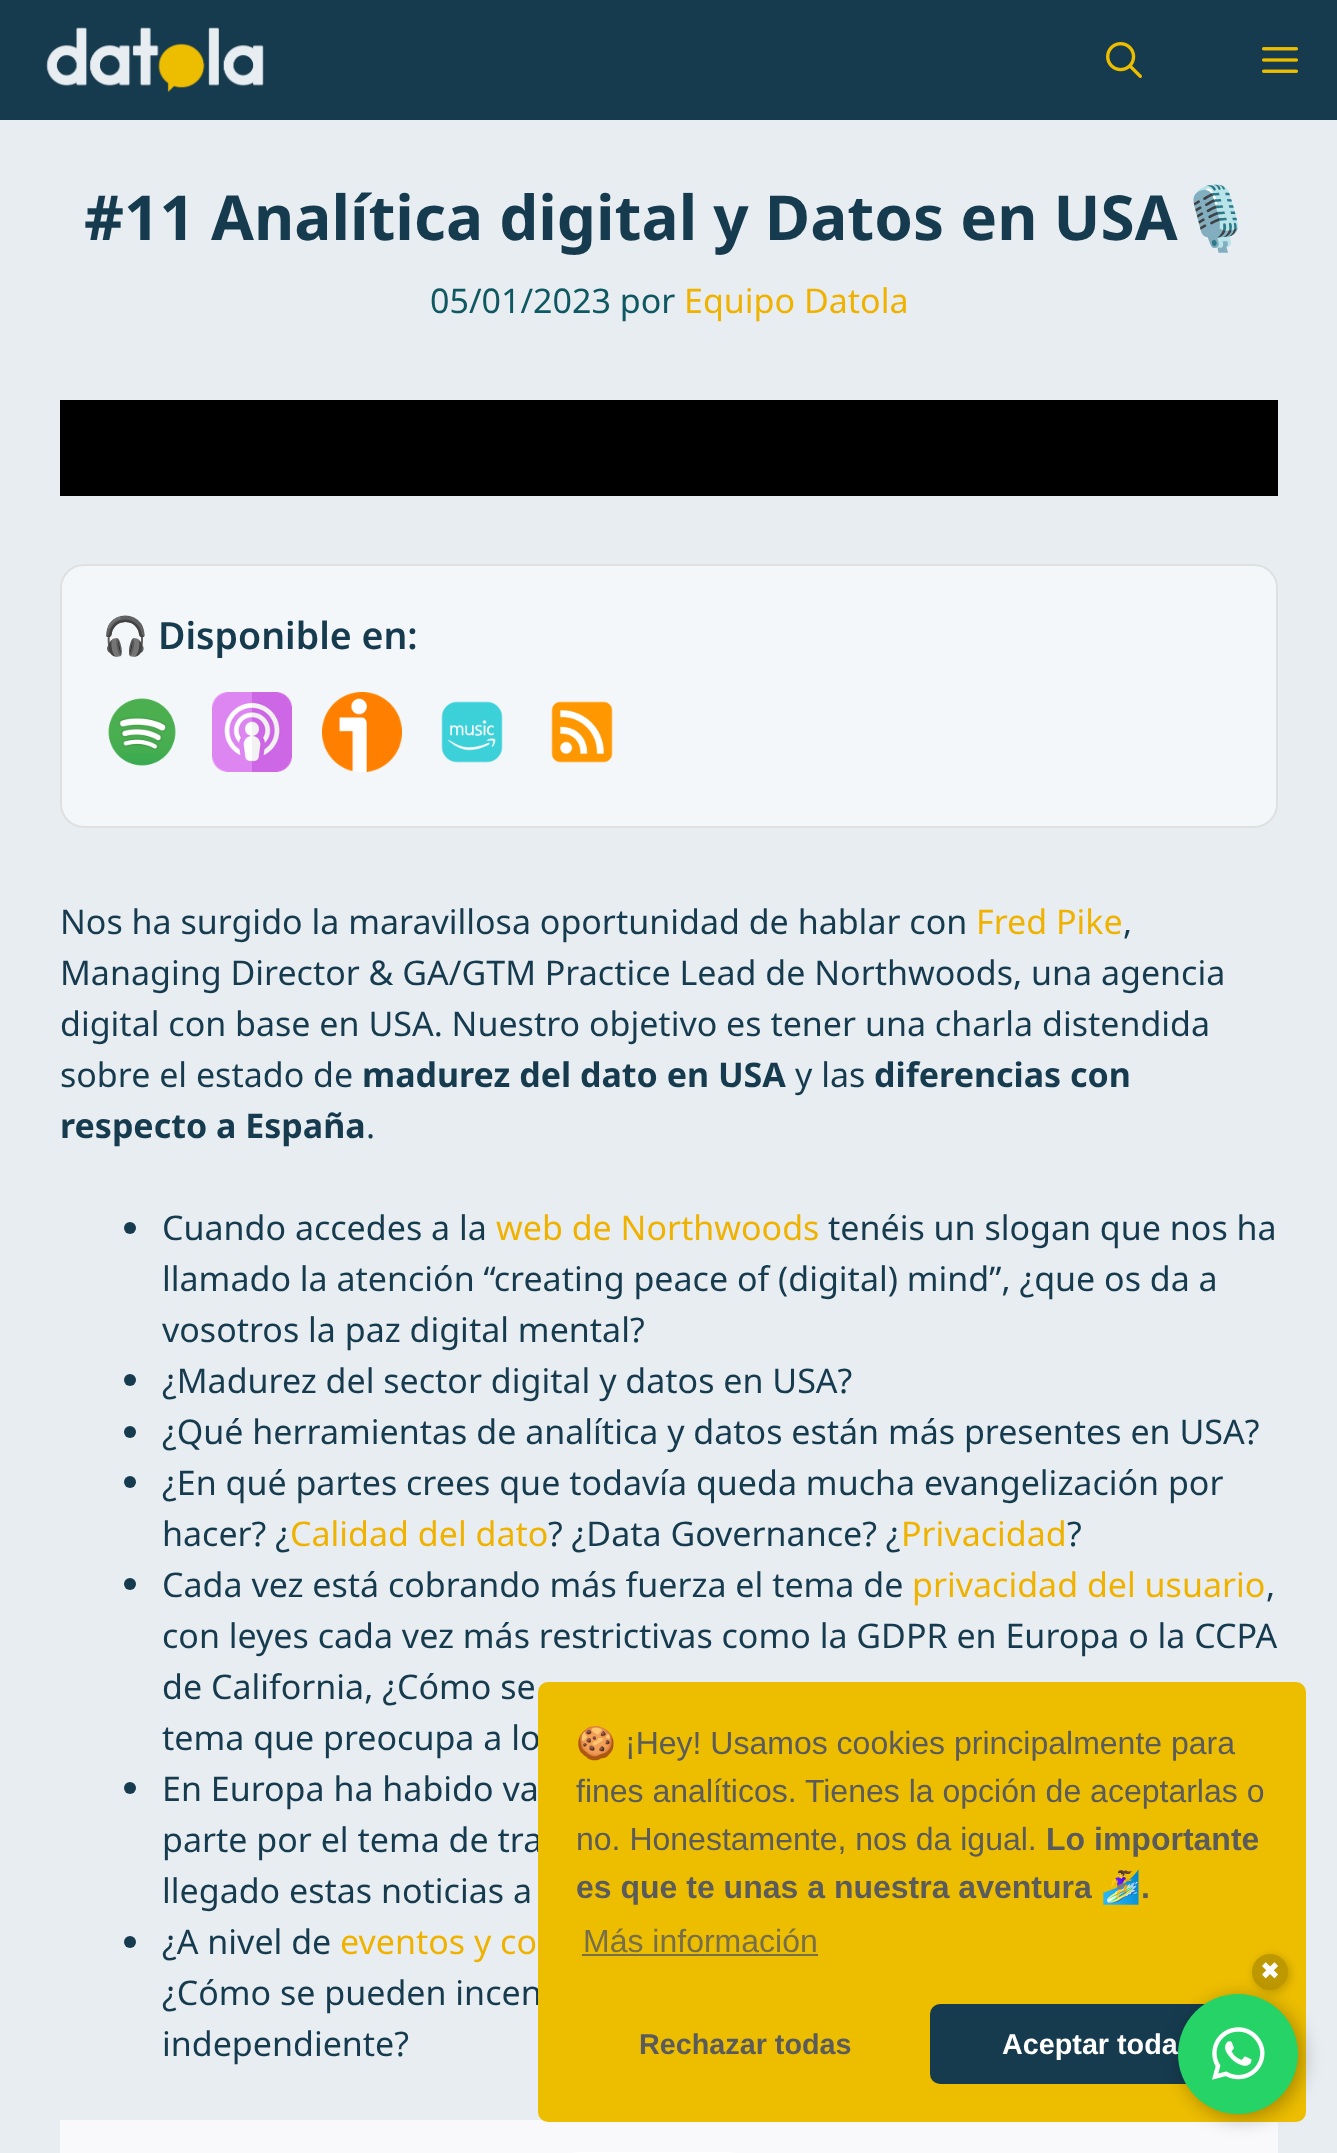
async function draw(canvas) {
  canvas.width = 1337;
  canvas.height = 2153;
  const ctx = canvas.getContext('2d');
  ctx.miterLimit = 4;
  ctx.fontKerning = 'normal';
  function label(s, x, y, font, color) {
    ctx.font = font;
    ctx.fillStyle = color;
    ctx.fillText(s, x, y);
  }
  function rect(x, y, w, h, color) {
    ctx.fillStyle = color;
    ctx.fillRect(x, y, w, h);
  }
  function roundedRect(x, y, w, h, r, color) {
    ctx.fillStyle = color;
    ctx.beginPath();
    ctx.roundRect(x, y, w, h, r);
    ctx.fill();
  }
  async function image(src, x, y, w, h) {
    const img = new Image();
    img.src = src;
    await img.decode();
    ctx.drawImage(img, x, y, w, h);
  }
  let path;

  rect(0, 0, 1337, 2153, '#e8edf1');
  rect(0, 0, 1337, 120, '#163b4f');
  await image('assets/img1.png', 46, 27, 218, 66);
  await image('assets/img2.png', 1106, 42, 36, 36);
  await image('assets/img3.png', 1262, 47, 36, 26);
  label('#11 Analítica digital y Datos en USA', 84, 240, 'bold 62px Noto Sans', '#163b4f');
  label('🎙️', 1177, 240, 'bold 62px Noto Color Emoji', '#163b4f');
  label('05/01/2023 por', 430, 313, '34px Noto Sans', '#0f5861');
  label('Equipo Datola', 684, 313, '34px Noto Sans', '#f0b200');
  rect(60, 400, 1218, 96, '#000');
  ctx.fillStyle = '#f4f7fa';
  ctx.beginPath();
  ctx.roundRect(61, 565, 1216, 262, 23);
  ctx.fill();
  ctx.strokeStyle = '#e0e0e0';
  ctx.lineWidth = 2;
  ctx.stroke();
  label('🎧', 102, 649, 'bold 37.5px Noto Color Emoji', '#163b4f');
  label('Disponible en:', 158, 649, '600 37.5px Noto Sans', '#163b4f');
  await image('assets/img4.png', 108, 698, 68, 68);
  await image('assets/img5.png', 212, 692, 80, 80);
  await image('assets/img6.png', 322, 692, 80, 80);
  await image('assets/img7.png', 441, 701, 62, 62);
  await image('assets/img8.png', 551, 701, 62, 62);
  label('Nos ha surgido la maravillosa oportunidad de hablar con', 60, 934, '34px Noto Sans', '#163b4f');
  label('Fred Pike', 976, 934, '34px Noto Sans', '#f0b200');
  label(',', 1123, 934, '34px Noto Sans', '#163b4f');
  label('Managing Director & GA/GTM Practice Lead de Northwoods, una agencia', 60, 985, '34px Noto Sans', '#163b4f');
  label('digital con base en USA. Nuestro objetivo es tener una charla distendida', 60, 1036, '34px Noto Sans', '#163b4f');
  label('sobre el estado de', 60, 1087, '34px Noto Sans', '#163b4f');
  label('madurez del dato en USA', 362, 1087, 'bold 34px Noto Sans', '#163b4f');
  label('y las', 795, 1087, '34px Noto Sans', '#163b4f');
  label('diferencias con', 874, 1087, 'bold 34px Noto Sans', '#163b4f');
  label('respecto a España', 60, 1138, 'bold 34px Noto Sans', '#163b4f');
  label('.', 366, 1138, '34px Noto Sans', '#163b4f');
  ctx.beginPath();
  ctx.arc(130, 1228, 6, 0, 2 * Math.PI);
  ctx.fill();
  label('Cuando accedes a la', 162, 1240, '34px Noto Sans', '#163b4f');
  label('web de Northwoods', 496, 1240, '34px Noto Sans', '#f0b200');
  label('tenéis un slogan que nos ha', 828, 1240, '34px Noto Sans', '#163b4f');
  label('llamado la atención “creating peace of (digital) mind”, ¿que os da a', 162, 1291, '34px Noto Sans', '#163b4f');
  label('vosotros la paz digital mental?', 162, 1342, '34px Noto Sans', '#163b4f');
  ctx.beginPath();
  ctx.arc(130, 1380, 6, 0, 2 * Math.PI);
  ctx.fill();
  label('¿Madurez del sector digital y datos en USA?', 162, 1393, '34px Noto Sans', '#163b4f');
  ctx.beginPath();
  ctx.arc(130, 1432, 6, 0, 2 * Math.PI);
  ctx.fill();
  label('¿Qué herramientas de analítica y datos están más presentes en USA?', 162, 1444, '34px Noto Sans', '#163b4f');
  ctx.beginPath();
  ctx.arc(130, 1482, 6, 0, 2 * Math.PI);
  ctx.fill();
  label('¿En qué partes crees que todavía queda mucha evangelización por', 162, 1495, '34px Noto Sans', '#163b4f');
  label('hacer? ¿', 162, 1546, '34px Noto Sans', '#163b4f');
  label('Calidad del dato', 290, 1546, '34px Noto Sans', '#f0b200');
  label('? ¿Data Governance? ¿', 548, 1546, '34px Noto Sans', '#163b4f');
  label('Privacidad', 901, 1546, '34px Noto Sans', '#f0b200');
  label('?', 1067, 1546, '34px Noto Sans', '#163b4f');
  ctx.beginPath();
  ctx.arc(130, 1584, 6, 0, 2 * Math.PI);
  ctx.fill();
  label('Cada vez está cobrando más fuerza el tema de', 162, 1597, '34px Noto Sans', '#163b4f');
  label('privacidad del usuario', 912, 1597, '34px Noto Sans', '#f0b200');
  label(',', 1266, 1597, '34px Noto Sans', '#163b4f');
  label('con leyes cada vez más restrictivas como la GDPR en Europa o la CCPA', 162, 1648, '34px Noto Sans', '#163b4f');
  label('de California, ¿Cómo se', 162, 1699, '34px Noto Sans', '#163b4f');
  label('tema que preocupa a lo', 162, 1750, '34px Noto Sans', '#163b4f');
  ctx.beginPath();
  ctx.arc(130, 1788, 6, 0, 2 * Math.PI);
  ctx.fill();
  label('En Europa ha habido va', 162, 1801, '34px Noto Sans', '#163b4f');
  label('parte por el tema de tra', 162, 1852, '34px Noto Sans', '#163b4f');
  label('llegado estas noticias a', 162, 1903, '34px Noto Sans', '#163b4f');
  ctx.beginPath();
  ctx.arc(130, 1942, 6, 0, 2 * Math.PI);
  ctx.fill();
  label('¿A nivel de', 162, 1954, '34px Noto Sans', '#163b4f');
  label('eventos y co', 340, 1954, '34px Noto Sans', '#f0b200');
  label('¿Cómo se pueden incen', 162, 2005, '34px Noto Sans', '#163b4f');
  label('independiente?', 162, 2056, '34px Noto Sans', '#163b4f');
  rect(60, 2120, 1218, 33, '#f9f8fa');
  ctx.beginPath();
  ctx.roundRect(508, 2156, 292, 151, 146);
  ctx.strokeStyle = '#fff';
  ctx.lineWidth = 8;
  ctx.stroke();
  roundedRect(538, 1682, 768, 440, 10, '#edbe00');
  label('🍪', 576, 1754, '32px Noto Color Emoji', '#5b5b5b');
  label('¡Hey! Usamos cookies principalmente para', 625, 1754, '32px Liberation Sans', '#5b5b5b');
  label('fines analíticos. Tienes la opción de aceptarlas o', 576, 1802, '32px Liberation Sans', '#5b5b5b');
  label('no. Honestamente, nos da igual.', 576, 1850, '32px Liberation Sans', '#5b5b5b');
  label('Lo importante', 1046, 1850, 'bold 32px Liberation Sans', '#5b5b5b');
  label('es que te unas a nuestra aventura', 576, 1898, 'bold 32px Liberation Sans', '#5b5b5b');
  label('🏄‍♀️', 1101, 1898, 'bold 32px Noto Color Emoji', '#5b5b5b');
  label('.', 1141, 1898, 'bold 32px Liberation Sans', '#5b5b5b');
  label('Más información', 583, 1952, '32px Liberation Sans', '#786f49');
  rect(582, 1954, 236, 2, '#786f49');
  label('Rechazar todas', 639, 2054, 'bold 28.75px Liberation Sans', '#5b5b5b');
  roundedRect(930, 2004, 338, 80, 10, '#163b4f');
  label('Aceptar toda', 1002, 2054, 'bold 28.75px Liberation Sans', '#fff');
  ctx.fillStyle = '#0000004d';
  ctx.filter = 'blur(10px)';
  ctx.beginPath();
  ctx.roundRect(1182, 1998, 120, 120, 60);
  ctx.fill();
  ctx.filter = 'none';
  ctx.fillStyle = '#25d366';
  ctx.beginPath();
  ctx.arc(1238, 2054, 60, 0, 2 * Math.PI);
  ctx.fill();
  ctx.save();
  path = new Path2D('M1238 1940H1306V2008H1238ZM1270 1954C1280 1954 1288 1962 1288 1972C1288 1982 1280 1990 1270 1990C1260 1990 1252 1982 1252 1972C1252 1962 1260 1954 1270 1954Z');
  ctx.clip(path, 'evenodd');
  ctx.fillStyle = '#00000033';
  ctx.filter = 'blur(5px)';
  ctx.beginPath();
  ctx.roundRect(1254, 1956, 36, 36, 18);
  ctx.fill();
  ctx.filter = 'none';
  ctx.restore();
  ctx.fillStyle = '#00000033';
  ctx.beginPath();
  ctx.arc(1270, 1972, 18, 0, 2 * Math.PI);
  ctx.fill();
  label('✖', 1260, 1979, '24px DejaVu Sans', '#fff');
  await image('assets/img9.png', 1212, 2027, 53, 53);
}

draw(document.querySelector('canvas'));
